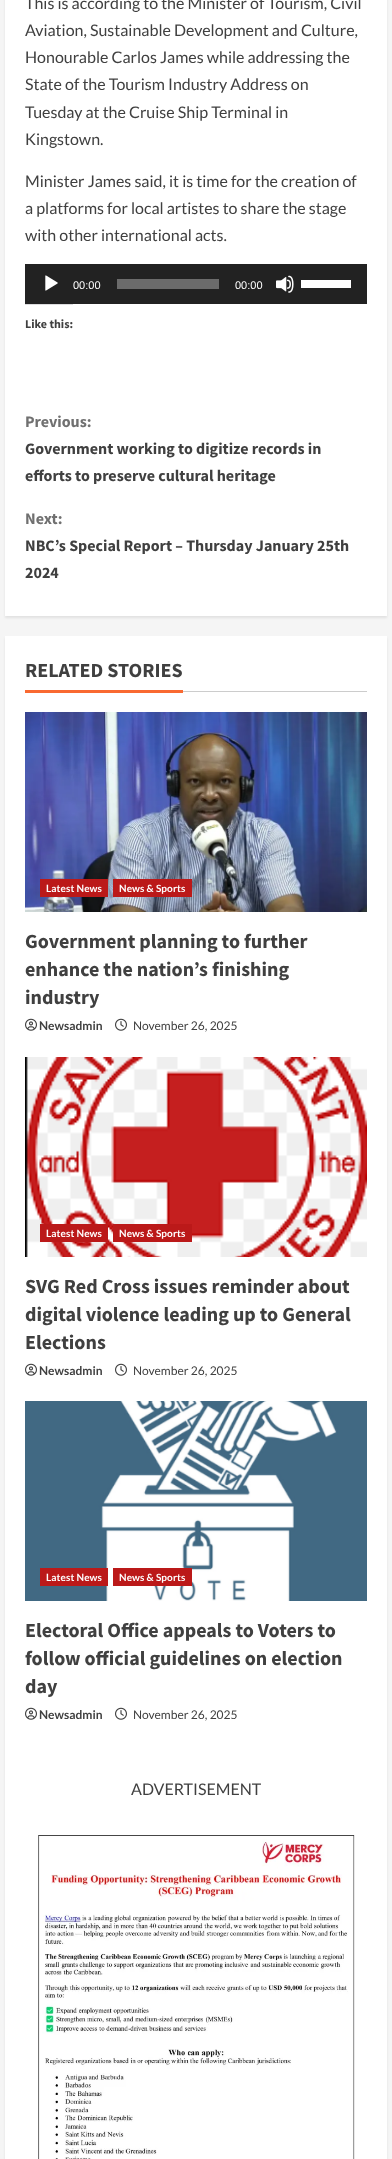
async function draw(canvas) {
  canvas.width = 392;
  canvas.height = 2159;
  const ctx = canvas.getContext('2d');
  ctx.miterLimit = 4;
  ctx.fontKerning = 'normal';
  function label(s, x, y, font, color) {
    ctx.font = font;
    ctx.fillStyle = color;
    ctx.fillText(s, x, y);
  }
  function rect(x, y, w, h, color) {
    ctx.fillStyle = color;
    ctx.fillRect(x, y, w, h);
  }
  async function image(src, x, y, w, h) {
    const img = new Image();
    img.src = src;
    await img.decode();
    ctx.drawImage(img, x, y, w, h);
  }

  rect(0, 0, 392, 2159, '#f5f5f5');
  ctx.fillStyle = '#00000014';
  ctx.filter = 'blur(1px)';
  ctx.beginPath();
  ctx.rect(5, -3, 382, 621);
  ctx.fill();
  ctx.filter = 'none';
  rect(5, 0, 382, 616, '#fff');
  label('This is according to the Minister of Tourism, Civil', 25, 9, '16px Lato', '#404040');
  label('Aviation, Sustainable Development and Culture,', 25, 36, '16px Lato', '#404040');
  label('Honourable Carlos James while addressing the', 25, 63, '16px Lato', '#404040');
  label('State of the Tourism Industry Address on', 25, 90, '16px Lato', '#404040');
  label('Tuesday at the Cruise Ship Terminal in', 25, 118, '16px Lato', '#404040');
  label('Kingstown.', 25, 145, '16px Lato', '#404040');
  label('Minister James said, it is time for the creation of', 25, 187, '16px Lato', '#404040');
  label('a platforms for local artistes to share the stage', 25, 214, '16px Lato', '#404040');
  label('with other international acts.', 25, 241, '16px Lato', '#404040');
  rect(25, 264, 342, 40, '#222');
  await image('assets/img1.png', 45, 275, 13, 16);
  label('00:00', 73, 289, '11px Liberation Sans', '#fff');
  rect(117, 279, 102, 10, '#6b6b6b');
  label('00:00', 235, 289, '11px Liberation Sans', '#fff');
  await image('assets/img2.png', 276, 275, 18, 18);
  rect(301, 280, 50, 8, '#fff');
  rect(25, 304, 48, 1, '#dcdcde');
  label('Like this:', 25, 328, 'bold 12px Source Sans Pro', '#404040');
  label('Previous:', 25, 427, 'bold 16px Source Sans Pro', '#707070');
  label('Government working to digitize records in', 25, 454, 'bold 16px Source Sans Pro', '#404040');
  label('efforts to preserve cultural heritage', 25, 481, 'bold 16px Source Sans Pro', '#404040');
  label('Next:', 25, 524, 'bold 16px Source Sans Pro', '#707070');
  label('NBC’s Special Report – Thursday January 25th', 25, 551, 'bold 16px Source Sans Pro', '#404040');
  label('2024', 25, 578, 'bold 16px Source Sans Pro', '#404040');
  ctx.fillStyle = '#00000014';
  ctx.filter = 'blur(1px)';
  ctx.beginPath();
  ctx.rect(5, 638, 382, 1109);
  ctx.fill();
  ctx.filter = 'none';
  rect(5, 636, 382, 1109, '#fff');
  rect(183, 691, 184, 1, '#ccc');
  label('RELATED STORIES', 25, 677, 'bold 20px Source Sans Pro', '#404040');
  rect(25, 690, 158, 3, '#f96931');
  await image('assets/img3.png', 25, 712, 342, 200);
  rect(40, 879, 68, 18, '#bb1919');
  ctx.letterSpacing = '0.1px';
  label('Latest News', 46, 892, 'bold 10px Lato', '#fff');
  rect(113, 879, 79, 18, '#bb1919');
  label('News & Sports', 119, 892, 'bold 10px Lato', '#fff');
  ctx.letterSpacing = '0px';
  label('Government planning to further', 25, 948, 'bold 20px Source Sans Pro', '#404040');
  label('enhance the nation’s finishing', 25, 976, 'bold 20px Source Sans Pro', '#404040');
  label('industry', 25, 1004, 'bold 20px Source Sans Pro', '#404040');
  await image('assets/img4.png', 25, 1018, 12, 13);
  label('Newsadmin', 39, 1030, 'bold 12px Lato', '#404040');
  await image('assets/img5.png', 115, 1018, 12, 13);
  label('November 26, 2025', 133, 1030, '12px Lato', '#404040');
  await image('assets/img6.png', 25, 1057, 342, 200);
  rect(40, 1224, 68, 18, '#bb1919');
  ctx.letterSpacing = '0.1px';
  label('Latest News', 46, 1237, 'bold 10px Lato', '#fff');
  rect(113, 1224, 79, 18, '#bb1919');
  label('News & Sports', 119, 1237, 'bold 10px Lato', '#fff');
  ctx.letterSpacing = '0px';
  label('SVG Red Cross issues reminder about', 25, 1293, 'bold 20px Source Sans Pro', '#404040');
  label('digital violence leading up to General', 25, 1321, 'bold 20px Source Sans Pro', '#404040');
  label('Elections', 25, 1349, 'bold 20px Source Sans Pro', '#404040');
  await image('assets/img4.png', 25, 1363, 12, 13);
  label('Newsadmin', 39, 1375, 'bold 12px Lato', '#404040');
  await image('assets/img5.png', 115, 1363, 12, 13);
  label('November 26, 2025', 133, 1375, '12px Lato', '#404040');
  await image('assets/img7.png', 25, 1401, 342, 200);
  rect(40, 1568, 68, 18, '#bb1919');
  ctx.letterSpacing = '0.1px';
  label('Latest News', 46, 1581, 'bold 10px Lato', '#fff');
  rect(113, 1568, 79, 18, '#bb1919');
  label('News & Sports', 119, 1581, 'bold 10px Lato', '#fff');
  ctx.letterSpacing = '0px';
  label('Electoral Office appeals to Voters to', 25, 1637, 'bold 20px Source Sans Pro', '#404040');
  label('follow official guidelines on election', 25, 1665, 'bold 20px Source Sans Pro', '#404040');
  label('day', 25, 1693, 'bold 20px Source Sans Pro', '#404040');
  await image('assets/img4.png', 25, 1707, 12, 13);
  label('Newsadmin', 39, 1719, 'bold 12px Lato', '#404040');
  await image('assets/img5.png', 115, 1707, 12, 13);
  label('November 26, 2025', 133, 1719, '12px Lato', '#404040');
  ctx.fillStyle = '#00000014';
  ctx.filter = 'blur(1px)';
  ctx.beginPath();
  ctx.rect(5, 1747, 382, 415);
  ctx.fill();
  ctx.filter = 'none';
  rect(5, 1745, 382, 414, '#fff');
  label('ADVERTISEMENT', 131, 1795, '16px Lato', '#404040');
  await image('assets/img8.png', 38, 1835, 317, 324);
}

draw(document.querySelector('canvas'));
